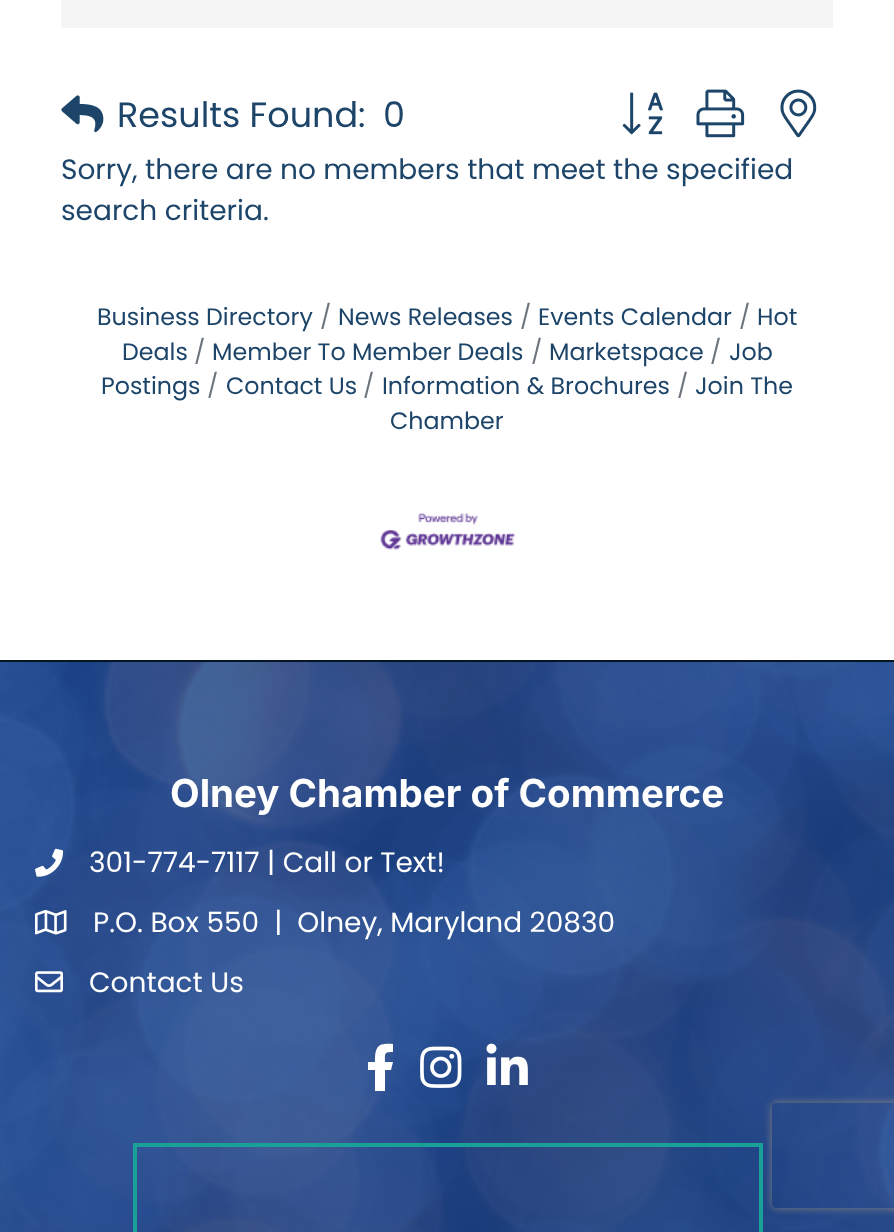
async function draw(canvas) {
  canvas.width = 894;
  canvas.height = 1232;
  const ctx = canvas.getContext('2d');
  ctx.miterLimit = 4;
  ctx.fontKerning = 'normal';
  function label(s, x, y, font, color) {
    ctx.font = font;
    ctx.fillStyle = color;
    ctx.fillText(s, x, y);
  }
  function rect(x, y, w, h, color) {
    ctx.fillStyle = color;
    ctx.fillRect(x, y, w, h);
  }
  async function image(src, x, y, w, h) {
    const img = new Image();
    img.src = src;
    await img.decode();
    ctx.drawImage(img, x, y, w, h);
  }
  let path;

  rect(0, 0, 894, 1232, '#fff');
  rect(61, 0, 772, 28, '#f5f5f5');
  await image('assets/img1.png', 61, 95, 43, 38);
  label('Results Found:', 117, 127, '35px Poppins', '#1d4569');
  label('0', 383, 127, '35px Poppins', '#1d4569');
  await image('assets/img2.png', 622, 92, 41, 43);
  await image('assets/img3.png', 696, 89, 49, 49);
  await image('assets/img4.png', 780, 89, 37, 49);
  label('Sorry, there are no members that meet the specified', 61, 179, '28px Poppins', '#1d4569');
  label('search criteria.', 61, 220, '28px Poppins', '#1d4569');
  label('/', 739, 325, '23.75px Poppins', '#6c757d');
  label('Hot', 757, 325, '23.75px Poppins', '#1d4569');
  label('Deals', 122, 360, '23.75px Poppins', '#1d4569');
  label('Business Directory', 97, 325, '23.75px Poppins', '#1d4569');
  label('/', 320, 325, '23.75px Poppins', '#6c757d');
  label('News Releases', 338, 325, '23.75px Poppins', '#1d4569');
  label('/', 520, 325, '23.75px Poppins', '#6c757d');
  label('Events Calendar', 538, 325, '23.75px Poppins', '#1d4569');
  label('/', 710, 360, '23.75px Poppins', '#6c757d');
  label('Job', 729, 360, '23.75px Poppins', '#1d4569');
  label('Postings', 101, 394, '23.75px Poppins', '#1d4569');
  label('/', 194, 360, '23.75px Poppins', '#6c757d');
  label('Member To Member Deals', 212, 360, '23.75px Poppins', '#1d4569');
  label('/', 531, 360, '23.75px Poppins', '#6c757d');
  label('Marketspace', 549, 360, '23.75px Poppins', '#1d4569');
  label('/', 207, 394, '23.75px Poppins', '#6c757d');
  label('Contact Us', 226, 394, '23.75px Poppins', '#1d4569');
  label('/', 363, 394, '23.75px Poppins', '#6c757d');
  label('Information & Brochures', 382, 394, '23.75px Poppins', '#1d4569');
  label('/', 677, 394, '23.75px Poppins', '#6c757d');
  label('Join The', 695, 394, '23.75px Poppins', '#1d4569');
  label('Chamber', 390, 429, '23.75px Poppins', '#1d4569');
  await image('assets/img5.png', 380, 513, 136, 37);
  await image('assets/img6.png', 0, 662, 894, 570);
  rect(0, 660, 894, 2, '#051622');
  label('Olney Chamber of Commerce', 170, 807, 'bold 38.5px Inter', '#fff');
  await image('assets/img7.png', 35, 848, 29, 29);
  label('301-774-7117 | Call or Text!', 89, 872, '28px Poppins', '#fff');
  await image('assets/img8.png', 35, 910, 32, 25);
  label('P.O. Box 550  |  Olney, Maryland 20830', 93, 932, '28px Poppins', '#fff');
  await image('assets/img9.png', 35, 971, 28, 22);
  label('Contact Us', 89, 992, '28px Poppins', '#fff');
  path = new Path2D('M391 1070H385V1091H375V1070H368V1062H375C375 1046 378 1043 393 1044V1052C384 1052 385 1053 385 1062H393Z');
  ctx.fill(path);
  await image('assets/img10.png', 420, 1046, 42, 42);
  await image('assets/img11.png', 486, 1043, 42, 42);
  ctx.save();
  path = new Path2D('M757 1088H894V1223H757ZM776 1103H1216C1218 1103 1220 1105 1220 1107V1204C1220 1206 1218 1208 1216 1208H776C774 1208 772 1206 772 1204V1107C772 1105 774 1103 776 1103Z');
  ctx.clip(path, 'evenodd');
  ctx.fillStyle = '#808080';
  ctx.filter = 'blur(4.5px)';
  ctx.beginPath();
  ctx.roundRect(772, 1103, 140, 105, 4);
  ctx.fill();
  ctx.filter = 'none';
  ctx.restore();
  ctx.strokeStyle = '#1ba098';
  ctx.lineWidth = 4;
  ctx.strokeRect(135, 1145, 626, 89);
}

draw(document.querySelector('canvas'));
